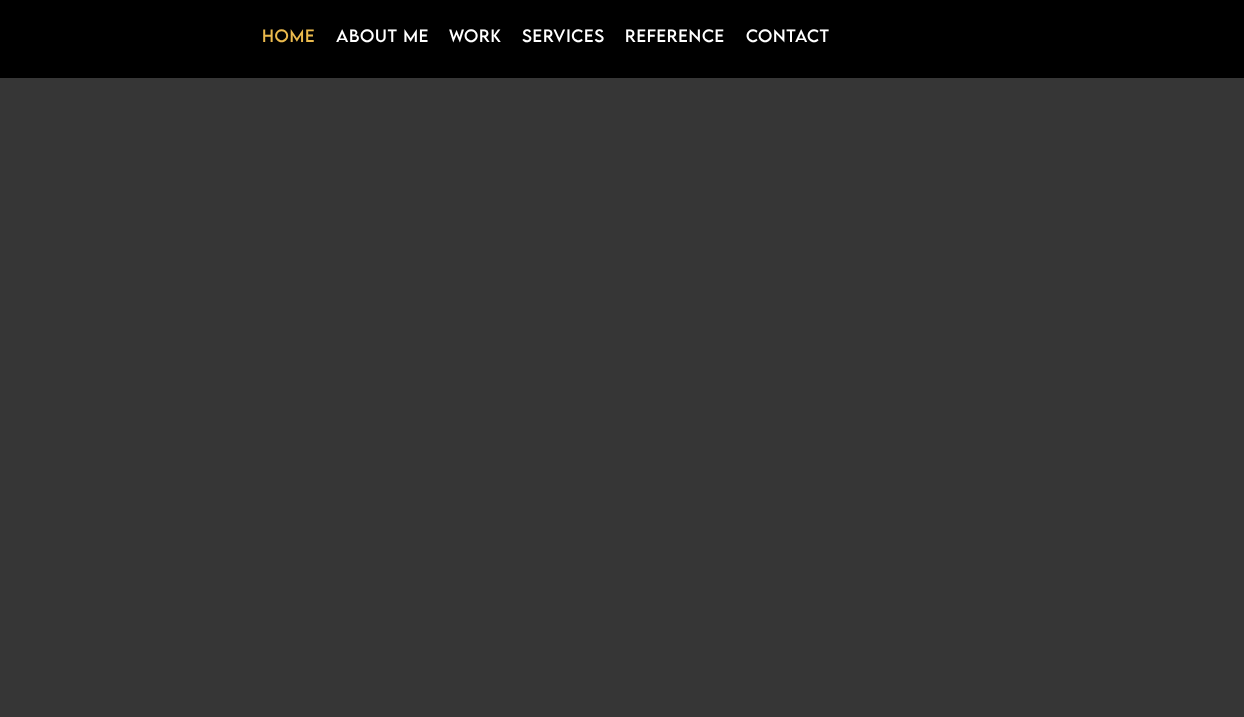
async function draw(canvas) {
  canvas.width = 1244;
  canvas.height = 717;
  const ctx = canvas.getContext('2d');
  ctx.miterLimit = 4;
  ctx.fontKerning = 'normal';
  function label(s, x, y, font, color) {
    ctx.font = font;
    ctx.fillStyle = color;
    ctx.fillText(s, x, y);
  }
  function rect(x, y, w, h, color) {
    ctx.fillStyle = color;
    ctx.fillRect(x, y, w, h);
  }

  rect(0, 0, 1244, 717, '#000');
  ctx.letterSpacing = '0.75px';
  label('Home', 262, 42, '16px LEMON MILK', '#ebba4d');
  label('About Me', 336, 42, '16px LEMON MILK', '#fff');
  label('Work', 449, 42, '16px LEMON MILK', '#fff');
  label('Services', 522, 42, '16px LEMON MILK', '#fff');
  label('Reference', 625, 42, '16px LEMON MILK', '#fff');
  label('Contact', 746, 42, '16px LEMON MILK', '#fff');
  rect(0, 78, 1244, 639, '#363636');
}

draw(document.querySelector('canvas'));
